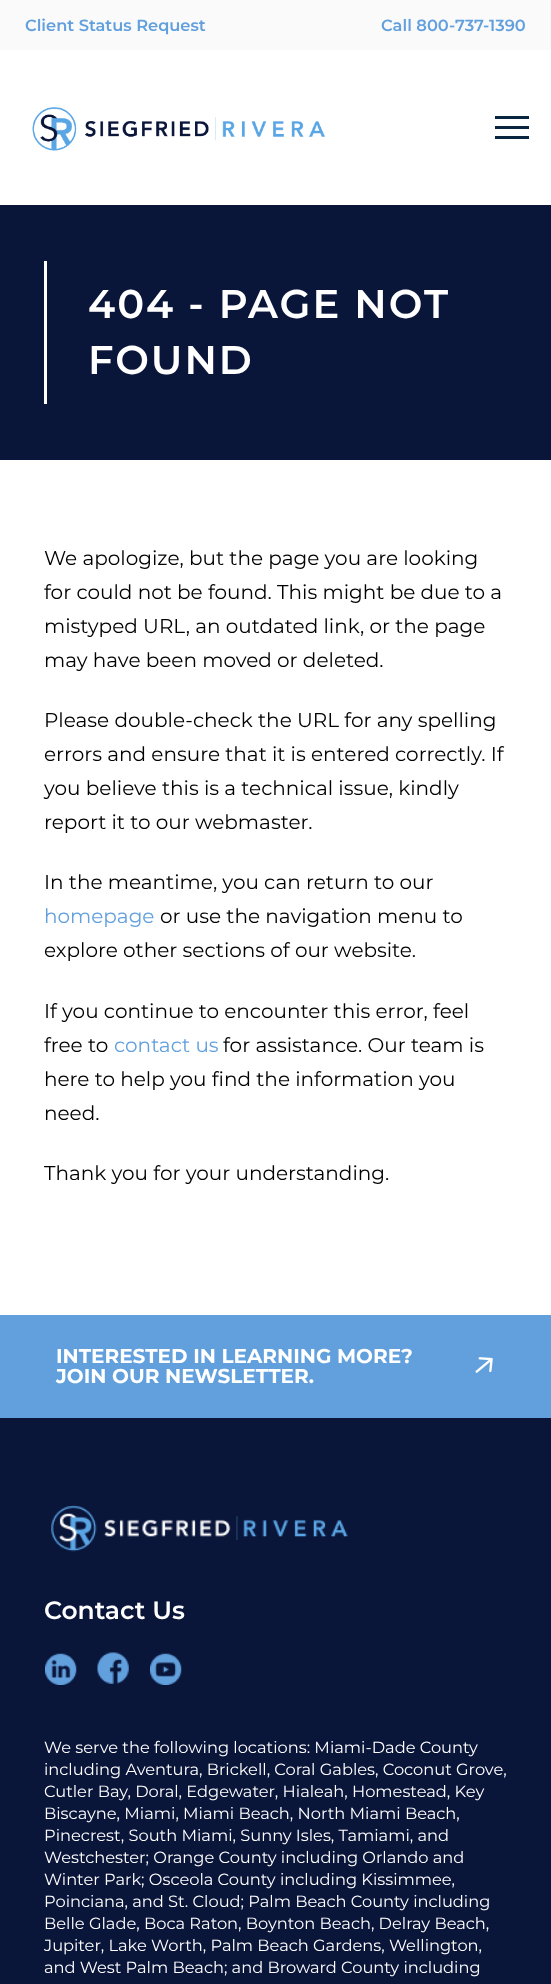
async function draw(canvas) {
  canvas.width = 551;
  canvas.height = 1984;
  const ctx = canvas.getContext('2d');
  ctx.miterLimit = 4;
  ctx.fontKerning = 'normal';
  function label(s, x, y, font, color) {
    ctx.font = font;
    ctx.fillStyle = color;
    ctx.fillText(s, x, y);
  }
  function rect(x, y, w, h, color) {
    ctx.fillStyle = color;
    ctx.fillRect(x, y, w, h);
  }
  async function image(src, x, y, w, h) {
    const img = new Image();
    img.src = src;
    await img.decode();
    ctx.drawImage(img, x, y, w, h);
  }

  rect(0, 0, 551, 1984, '#fff');
  rect(0, 0, 551, 50, '#fafafb');
  label('Client Status Request', 25, 31, '600 16.25px Montserrat', '#62a0dd');
  label('Call 800-737-1390', 381, 31, '600 16.25px Montserrat', '#62a0dd');
  await image('assets/img1.png', 32, 107, 293, 44);
  rect(495, 116, 34, 3, '#0a2540');
  rect(495, 126, 34, 3, '#0a2540');
  rect(495, 136, 34, 3, '#0a2540');
  rect(0, 205, 551, 255, '#0a153a');
  rect(44, 261, 3, 143, '#fff');
  ctx.letterSpacing = '2px';
  label('404 - PAGE NOT', 88, 318, '600 40px Montserrat', '#fff');
  label('FOUND', 88, 374, '600 40px Montserrat', '#fff');
  ctx.letterSpacing = '0px';
  label('We apologize, but the page you are looking', 44, 565, '20px Montserrat', '#000');
  label('for could not be found. This might be due to a', 44, 599, '20px Montserrat', '#000');
  label('mistyped URL, an outdated link, or the page', 44, 633, '20px Montserrat', '#000');
  label('may have been moved or deleted.', 44, 667, '20px Montserrat', '#000');
  label('Please double-check the URL for any spelling', 44, 727, '20px Montserrat', '#000');
  label('errors and ensure that it is entered correctly. If', 44, 761, '20px Montserrat', '#000');
  label('you believe this is a technical issue, kindly', 44, 795, '20px Montserrat', '#000');
  label('report it to our webmaster.', 44, 829, '20px Montserrat', '#000');
  label('In the meantime, you can return to our', 44, 889, '20px Montserrat', '#000');
  label('homepage', 44, 923, '20px Montserrat', '#62a0dd');
  label('or use the navigation menu to', 160, 923, '20px Montserrat', '#000');
  label('explore other sections of our website.', 44, 957, '20px Montserrat', '#000');
  label('If you continue to encounter this error, feel', 44, 1018, '20px Montserrat', '#000');
  label('free to', 44, 1052, '20px Montserrat', '#000');
  label('contact us', 114, 1052, '20px Montserrat', '#62a0dd');
  label('for assistance. Our team is', 223, 1052, '20px Montserrat', '#000');
  label('here to help you find the information you', 44, 1086, '20px Montserrat', '#000');
  label('need.', 44, 1120, '20px Montserrat', '#000');
  label('Thank you for your understanding.', 44, 1180, '20px Montserrat', '#000');
  rect(0, 1315, 551, 103, '#62a0dd');
  label('INTERESTED IN LEARNING MORE?', 56, 1363, 'bold 20px Montserrat', '#fff');
  label('JOIN OUR NEWSLETTER.', 56, 1383, 'bold 20px Montserrat', '#fff');
  await image('assets/img2.png', 475, 1357, 18, 16);
  rect(0, 1418, 551, 566, '#0a153a');
  await image('assets/img3.png', 51, 1505, 297, 47);
  label('Contact Us', 44, 1619, '600 25px Montserrat', '#fff');
  await image('assets/img4.png', 45, 1653, 32, 32);
  await image('assets/img5.png', 97, 1652, 32, 32);
  await image('assets/img6.png', 150, 1653, 32, 32);
  label('We serve the following locations: Miami-Dade County', 44, 1753, '16.25px Montserrat', '#fff');
  label('including Aventura, Brickell, Coral Gables, Coconut Grove,', 44, 1775, '16.25px Montserrat', '#fff');
  label('Cutler Bay, Doral, Edgewater, Hialeah, Homestead, Key', 44, 1797, '16.25px Montserrat', '#fff');
  label('Biscayne, Miami, Miami Beach, North Miami Beach,', 44, 1819, '16.25px Montserrat', '#fff');
  label('Pinecrest, South Miami, Sunny Isles, Tamiami, and', 44, 1841, '16.25px Montserrat', '#fff');
  label('Westchester; Orange County including Orlando and', 44, 1863, '16.25px Montserrat', '#fff');
  label('Winter Park; Osceola County including Kissimmee,', 44, 1885, '16.25px Montserrat', '#fff');
  label('Poinciana, and St. Cloud; Palm Beach County including', 44, 1907, '16.25px Montserrat', '#fff');
  label('Belle Glade, Boca Raton, Boynton Beach, Delray Beach,', 44, 1929, '16.25px Montserrat', '#fff');
  label('Jupiter, Lake Worth, Palm Beach Gardens, Wellington,', 44, 1951, '16.25px Montserrat', '#fff');
  label('and West Palm Beach; and Broward County including', 44, 1973, '16.25px Montserrat', '#fff');
}

draw(document.querySelector('canvas'));
